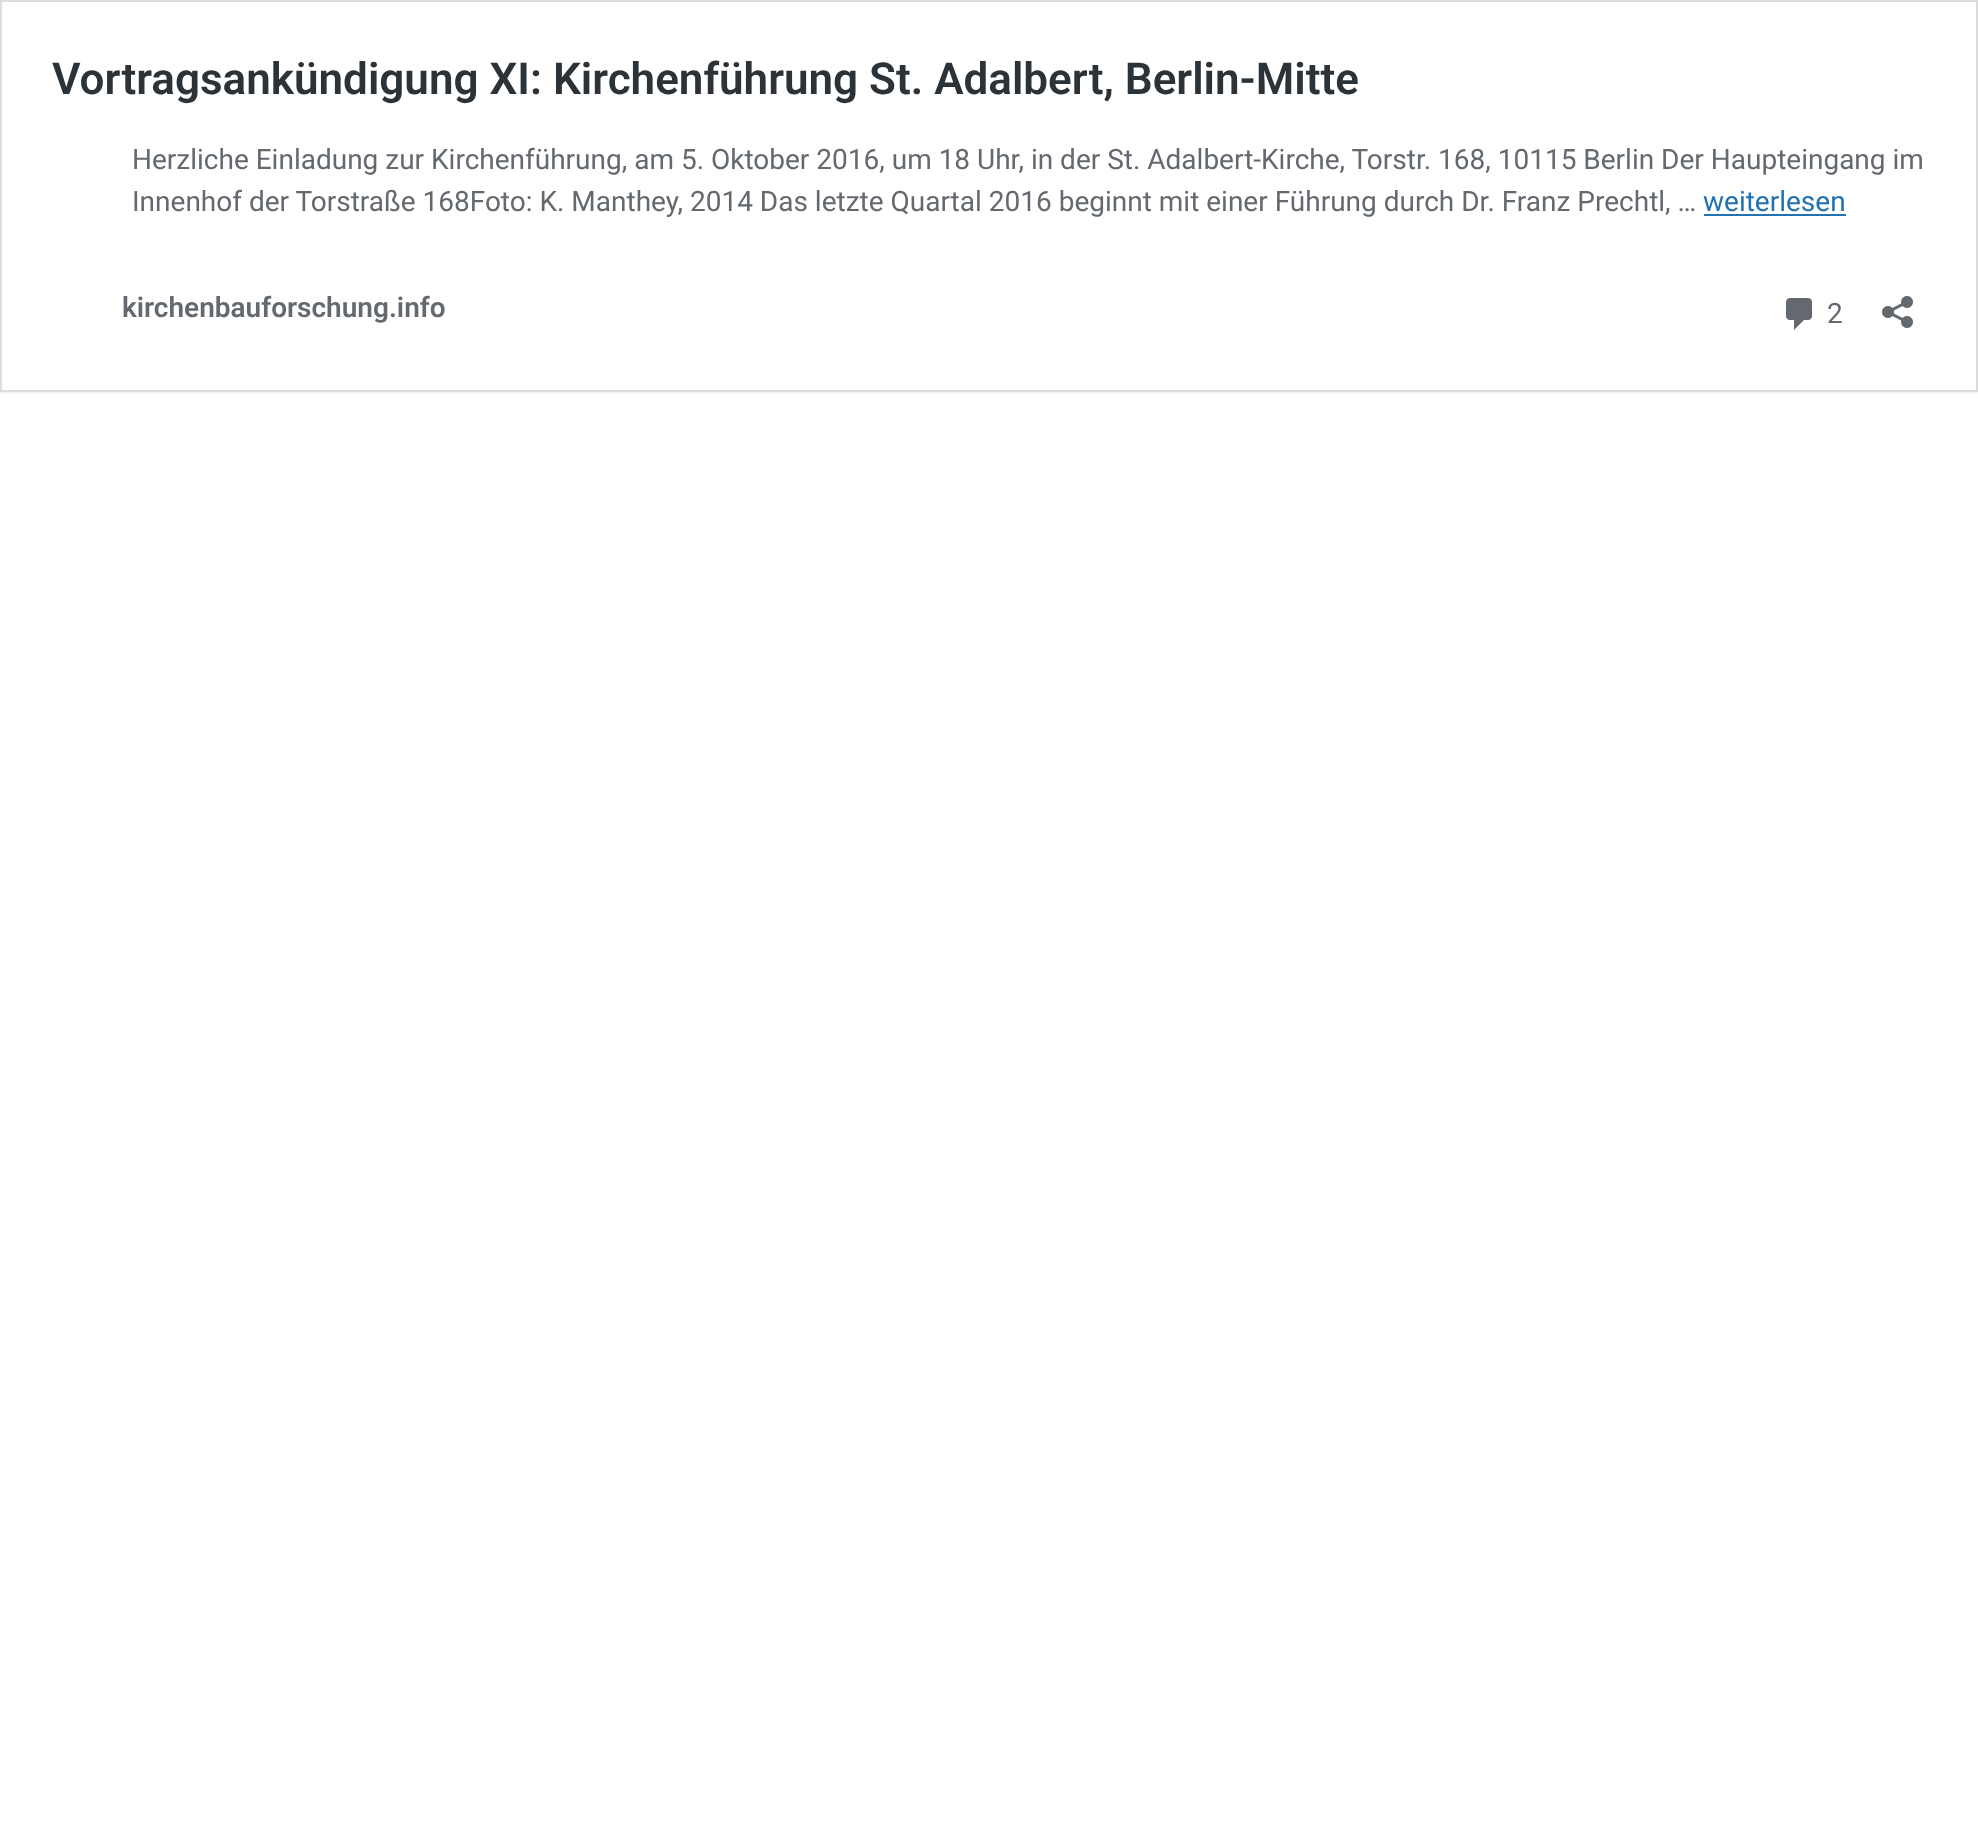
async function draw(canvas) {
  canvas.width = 1978;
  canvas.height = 1831;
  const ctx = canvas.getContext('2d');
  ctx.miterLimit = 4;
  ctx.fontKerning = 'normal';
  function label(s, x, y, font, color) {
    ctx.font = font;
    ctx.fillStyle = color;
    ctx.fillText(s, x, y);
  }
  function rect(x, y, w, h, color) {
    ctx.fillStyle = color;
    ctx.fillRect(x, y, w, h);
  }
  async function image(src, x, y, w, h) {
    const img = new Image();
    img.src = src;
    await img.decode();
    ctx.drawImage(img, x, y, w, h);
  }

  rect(0, 0, 1978, 1831, '#fff');
  ctx.save();
  ctx.beginPath();
  ctx.rect(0, 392, 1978, 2);
  ctx.clip();
  ctx.fillStyle = '#0000000d';
  ctx.filter = 'blur(1px)';
  ctx.beginPath();
  ctx.rect(0, 2, 1978, 392);
  ctx.fill();
  ctx.filter = 'none';
  ctx.restore();
  ctx.strokeStyle = '#dcdcde';
  ctx.lineWidth = 2;
  ctx.strokeRect(1, 1, 1976, 390);
  label('Vortragsankündigung XI: Kirchenführung St. Adalbert, Berlin-Mitte', 52, 94, '600 44px Roboto', '#2c3338');
  label('Herzliche Einladung zur Kirchenführung, am 5. Oktober 2016, um 18 Uhr, in der St. Adalbert-Kirche, Torstr. 168, 10115 Berlin Der Haupteingang im', 132, 169, '28px Roboto', '#646970');
  label('Innenhof der Torstraße 168Foto: K. Manthey, 2014 Das letzte Quartal 2016 beginnt mit einer Führung durch Dr. Franz Prechtl, …', 132, 211, '28px Roboto', '#646970');
  label('weiterlesen', 1703, 211, '28px Roboto', '#2271b1');
  rect(1704, 214, 142, 2, '#2271b1');
  label('kirchenbauforschung.info', 122, 317, '600 28px Roboto', '#646970');
  await image('assets/img1.png', 1786, 298, 26, 32);
  label('2', 1827, 323, '28px Roboto', '#646970');
  await image('assets/img2.png', 1882, 296, 31, 32);
}

draw(document.querySelector('canvas'));
